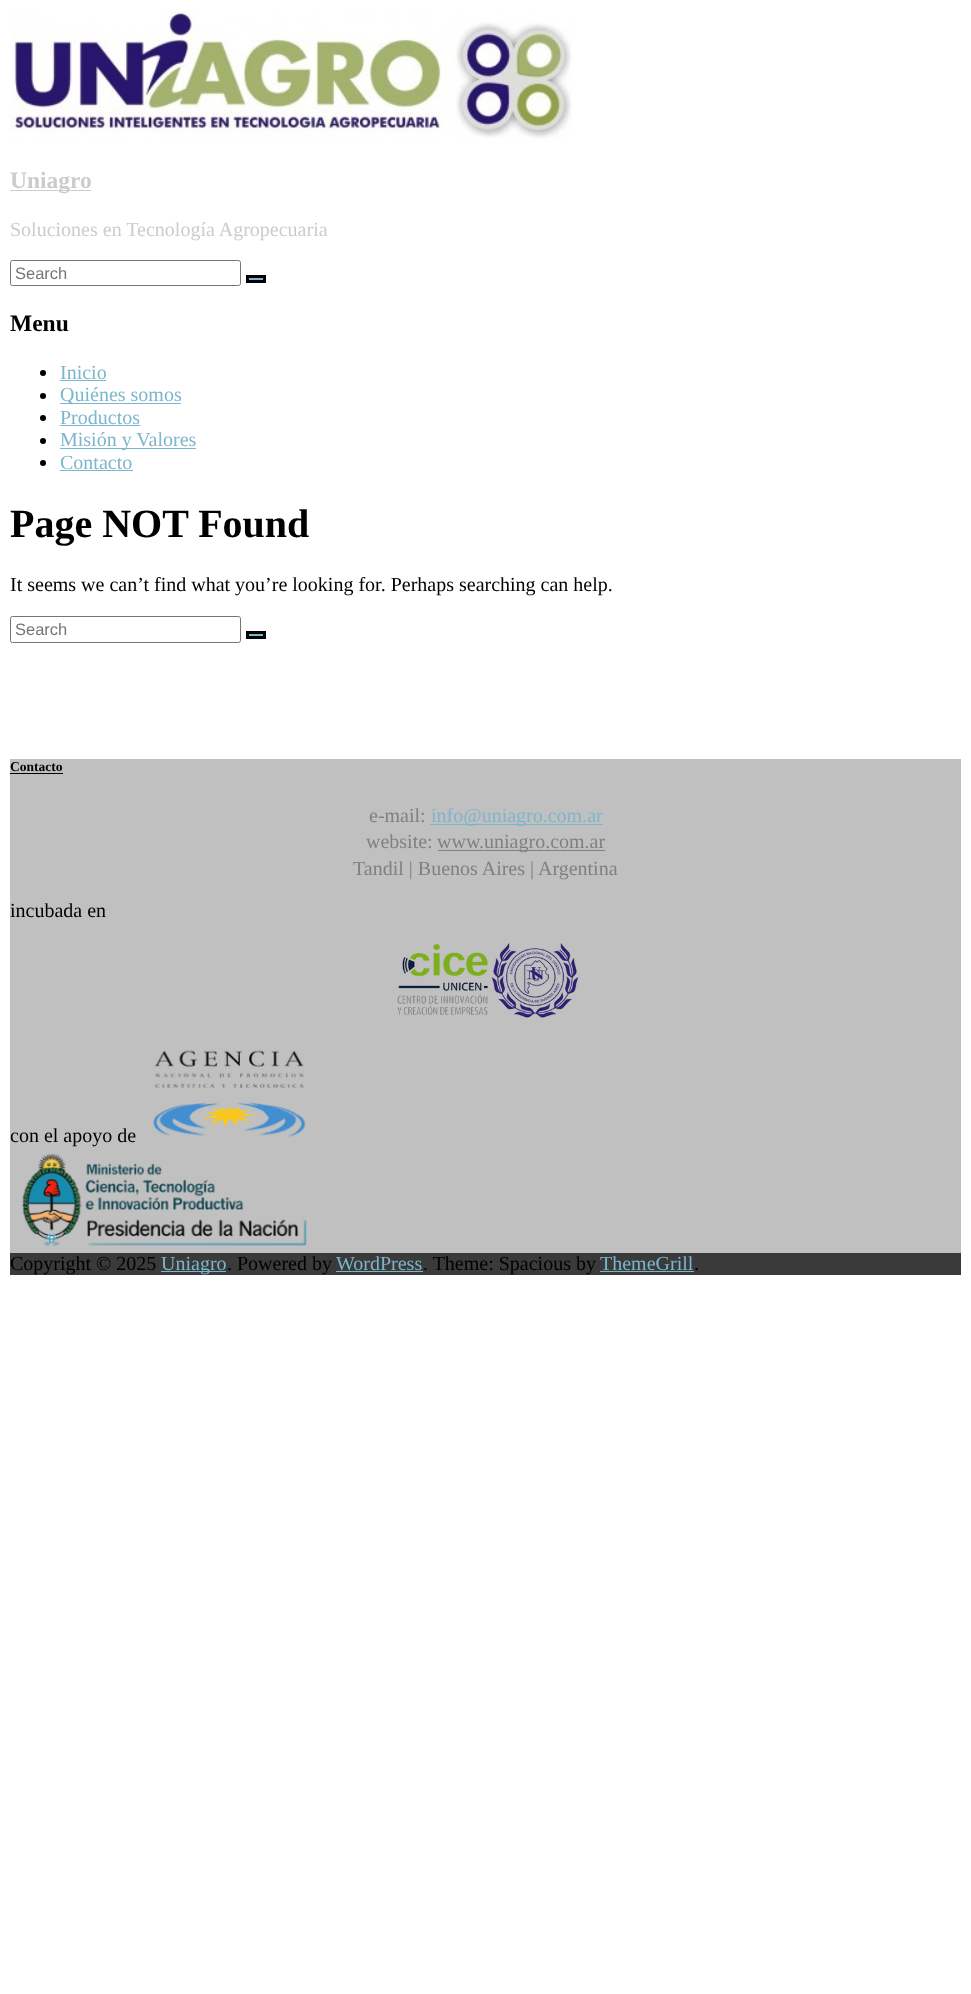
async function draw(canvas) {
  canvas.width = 971;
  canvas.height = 1994;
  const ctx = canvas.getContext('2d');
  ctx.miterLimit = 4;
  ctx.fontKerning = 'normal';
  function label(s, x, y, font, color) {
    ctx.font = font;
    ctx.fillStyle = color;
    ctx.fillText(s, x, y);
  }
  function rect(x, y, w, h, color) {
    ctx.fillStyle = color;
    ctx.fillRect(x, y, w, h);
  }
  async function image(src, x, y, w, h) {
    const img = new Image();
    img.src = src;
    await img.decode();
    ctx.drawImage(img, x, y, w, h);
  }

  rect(0, 0, 971, 1994, '#fff');
  await image('assets/img1.png', 10, 10, 562, 129);
  rect(10, 190, 81, 1, '#ccc');
  label('Uniagro', 10, 188, 'bold 23.5px Liberation Serif', '#ccc');
  label('Soluciones en Tecnología Agropecuaria', 10, 236, '20px Liberation Serif', '#ccc');
  ctx.beginPath();
  ctx.roundRect(10.5, 260.5, 230, 25, 2);
  ctx.strokeStyle = '#767676';
  ctx.stroke();
  label('Search', 15, 279, '16.5px Liberation Sans', '#757575');
  ctx.fillStyle = '#7cb6cc';
  ctx.beginPath();
  ctx.rect(247.5, 276.5, 17, 5);
  ctx.fill();
  ctx.strokeStyle = '#000';
  ctx.lineWidth = 3;
  ctx.stroke();
  label('Menu', 10, 331, 'bold 23.5px Liberation Serif', '#000');
  ctx.beginPath();
  ctx.arc(43, 373, 3, 0, 2 * Math.PI);
  ctx.fill();
  label('Inicio', 60, 379, '20px Liberation Serif', '#7cb6cc');
  rect(60, 380, 46, 1, '#7cb6cc');
  ctx.fillStyle = '#000';
  ctx.beginPath();
  ctx.arc(43, 396, 3, 0, 2 * Math.PI);
  ctx.fill();
  rect(60, 403, 121, 1, '#7cb6cc');
  label('Quiénes somos', 60, 401, '20px Liberation Serif', '#7cb6cc');
  ctx.fillStyle = '#000';
  ctx.beginPath();
  ctx.arc(43, 418, 3, 0, 2 * Math.PI);
  ctx.fill();
  label('Productos', 60, 424, '20px Liberation Serif', '#7cb6cc');
  rect(60, 425, 80, 1, '#7cb6cc');
  ctx.fillStyle = '#000';
  ctx.beginPath();
  ctx.arc(43, 441, 3, 0, 2 * Math.PI);
  ctx.fill();
  rect(60, 448, 136, 1, '#7cb6cc');
  label('Misión y Valores', 60, 446, '20px Liberation Serif', '#7cb6cc');
  ctx.fillStyle = '#000';
  ctx.beginPath();
  ctx.arc(43, 463, 3, 0, 2 * Math.PI);
  ctx.fill();
  label('Contacto', 60, 469, '20px Liberation Serif', '#7cb6cc');
  rect(60, 470, 73, 1, '#7cb6cc');
  label('Page NOT Found', 10, 537, 'bold 40px Liberation Serif', '#000');
  label('It seems we can’t find what you’re looking for. Perhaps searching can help.', 10, 591, '20px Liberation Serif', '#000');
  ctx.beginPath();
  ctx.roundRect(10.5, 616.5, 230, 26, 2);
  ctx.strokeStyle = '#767676';
  ctx.lineWidth = 1;
  ctx.stroke();
  label('Search', 15, 635, '16.5px Liberation Sans', '#757575');
  ctx.fillStyle = '#7cb6cc';
  ctx.beginPath();
  ctx.rect(247.5, 632.5, 17, 5);
  ctx.fill();
  ctx.strokeStyle = '#000';
  ctx.lineWidth = 3;
  ctx.stroke();
  rect(10, 759, 951, 494, '#c0c0c0');
  label('Contacto', 10, 771, 'bold 13.5px Liberation Serif', '#000');
  rect(10, 773, 53, 1, '#000');
  label('e-mail:', 369, 822, '20px Liberation Serif', '#808080');
  rect(430, 824, 173, 1, '#7cb6cc');
  label('info@uniagro.com.ar', 431, 822, '20px Liberation Serif', '#7cb6cc');
  label('website:', 366, 848, '20px Liberation Serif', '#808080');
  rect(438, 850, 167, 1, '#808080');
  label('www.uniagro.com.ar', 437, 848, '20px Liberation Serif', '#808080');
  label('Tandil | Buenos Aires | Argentina', 353, 875, '20px Liberation Serif', '#808080');
  label('incubada en', 10, 917, '20px Liberation Serif', '#000');
  await image('assets/img2.png', 397, 943, 91, 72);
  await image('assets/img3.png', 491, 943, 88, 75);
  label('con el apoyo de', 10, 1142, '20px Liberation Serif', '#000');
  await image('assets/img4.png', 153, 1050, 153, 87);
  await image('assets/img5.png', 22, 1153, 285, 94);
  rect(10, 1253, 951, 22, '#3a3a3a');
  label('Copyright © 2025', 10, 1270, '20px Liberation Serif', '#000');
  rect(161, 1271, 65, 1, '#7cb6cc');
  label('Uniagro', 161, 1270, '20px Liberation Serif', '#7cb6cc');
  label('. Powered by', 227, 1270, '20px Liberation Serif', '#000');
  label('WordPress', 336, 1270, '20px Liberation Serif', '#7cb6cc');
  rect(336, 1271, 87, 1, '#7cb6cc');
  label('. Theme: Spacious by', 423, 1270, '20px Liberation Serif', '#000');
  label('ThemeGrill', 600, 1270, '20px Liberation Serif', '#7cb6cc');
  rect(600, 1271, 94, 1, '#7cb6cc');
  label('.', 694, 1270, '20px Liberation Serif', '#000');
}

draw(document.querySelector('canvas'));
